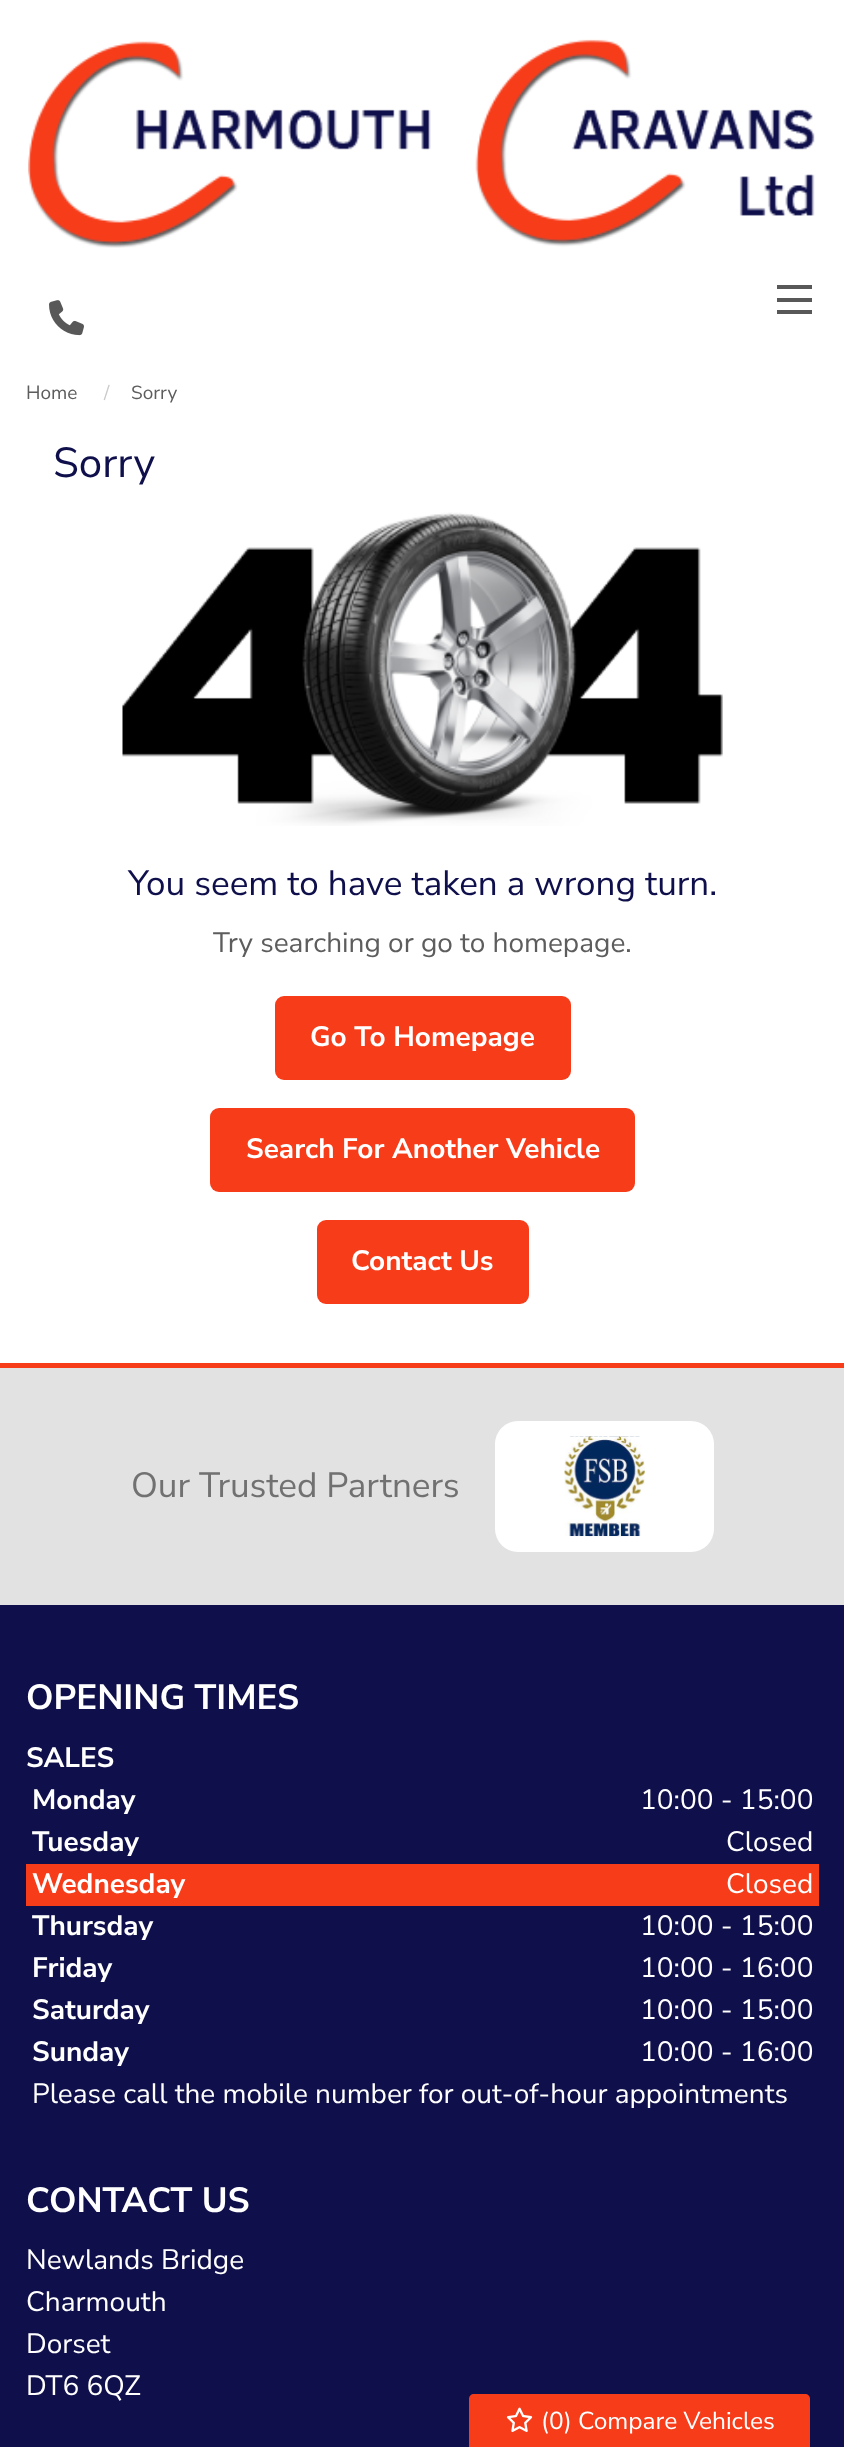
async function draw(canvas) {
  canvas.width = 844;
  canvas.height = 2447;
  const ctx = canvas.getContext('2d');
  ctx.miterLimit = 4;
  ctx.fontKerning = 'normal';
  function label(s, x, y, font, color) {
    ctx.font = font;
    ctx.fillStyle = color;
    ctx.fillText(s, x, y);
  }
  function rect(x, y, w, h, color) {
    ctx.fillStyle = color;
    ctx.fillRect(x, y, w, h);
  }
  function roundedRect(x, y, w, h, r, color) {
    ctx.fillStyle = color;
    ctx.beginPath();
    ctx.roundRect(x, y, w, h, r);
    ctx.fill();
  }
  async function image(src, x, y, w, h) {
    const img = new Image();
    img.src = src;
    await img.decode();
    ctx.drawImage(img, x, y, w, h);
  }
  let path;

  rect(0, 0, 844, 2447, '#fff');
  await image('assets/img1.png', 28, 39, 787, 209);
  await image('assets/img2.png', 49, 300, 35, 36);
  rect(777, 310, 35, 4, '#585858');
  rect(777, 298, 35, 4, '#585858');
  rect(777, 285, 35, 4, '#585858');
  label('Home', 26, 399, '19px Nunito Sans', '#5d5d5d');
  label('/', 104, 399, '19px Nunito Sans', '#cacaca');
  label('Sorry', 131, 399, '19px Nunito Sans', '#5d5d5d');
  label('Sorry', 53, 477, '42px Nunito Sans', '#0f0f4b');
  await image('assets/img3.png', 122, 512, 601, 314);
  label('You seem to have taken a wrong turn.', 128, 895, '35px Nunito Sans', '#0f0f4b');
  label('Try searching or go to homepage.', 213, 952, '28px Nunito Sans', '#5d5d5d');
  roundedRect(275, 996, 296, 84, 9, '#f73c1a');
  label('Go To Homepage', 310, 1046, 'bold 28px Nunito Sans', '#fff');
  roundedRect(210, 1108, 425, 84, 9, '#f73c1a');
  label('Search For Another Vehicle', 246, 1158, 'bold 28px Nunito Sans', '#fff');
  roundedRect(317, 1220, 212, 84, 9, '#f73c1a');
  label('Contact Us', 351, 1270, 'bold 28px Nunito Sans', '#fff');
  rect(0, 1605, 844, 842, '#0f0f4b');
  ctx.fillStyle = '#f73c1a';
  path = new Path2D('M474 2394H805C808 2394 810 2396 810 2399V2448H469V2399C469 2396 471 2394 474 2394Z');
  ctx.fill(path);
  await image('assets/img4.png', 506, 2407, 27, 25);
  label('(', 541, 2429, '24.5px Nunito Sans', '#fff');
  label('0', 549, 2429, '24.5px Nunito Sans', '#fff');
  label(') Compare Vehicles', 564, 2429, '24.5px Nunito Sans', '#fff');
  rect(0, 1368, 844, 237, '#e2e2e2');
  rect(0, 1363, 844, 5, '#f73c1a');
  label('Our Trusted Partners', 131, 1497, '35px Nunito Sans', '#717171');
  roundedRect(495, 1421, 219, 131, 23, '#fff');
  await image('assets/img5.png', 564, 1436, 81, 101);
  label('OPENING TIMES', 26, 1709, 'bold 35px Nunito Sans', '#fff');
  label('SALES', 26, 1767, 'bold 28px Nunito Sans', '#fff');
  label('Monday', 32, 1809, 'bold 28px Nunito Sans', '#fff');
  label('10:00 - 15:00', 640, 1809, '28px Nunito Sans', '#fff');
  label('Tuesday', 32, 1851, 'bold 28px Nunito Sans', '#fff');
  label('Closed', 726, 1851, '28px Nunito Sans', '#fff');
  rect(26, 1864, 793, 42, '#f73c1a');
  label('Wednesday', 32, 1893, 'bold 28px Nunito Sans', '#fff');
  label('Closed', 726, 1893, '28px Nunito Sans', '#fff');
  label('Thursday', 32, 1935, 'bold 28px Nunito Sans', '#fff');
  label('10:00 - 15:00', 640, 1935, '28px Nunito Sans', '#fff');
  label('Friday', 32, 1977, 'bold 28px Nunito Sans', '#fff');
  label('10:00 - 16:00', 640, 1977, '28px Nunito Sans', '#fff');
  label('Saturday', 32, 2019, 'bold 28px Nunito Sans', '#fff');
  label('10:00 - 15:00', 640, 2019, '28px Nunito Sans', '#fff');
  label('Sunday', 32, 2061, 'bold 28px Nunito Sans', '#fff');
  label('10:00 - 16:00', 640, 2061, '28px Nunito Sans', '#fff');
  label('Please call the mobile number for out-of-hour appointments', 32, 2103, '28px Nunito Sans', '#fff');
  label('CONTACT US', 26, 2212, 'bold 35px Nunito Sans', '#fff');
  label('Newlands Bridge', 26, 2269, '28px Nunito Sans', '#fff');
  label('Charmouth', 26, 2311, '28px Nunito Sans', '#fff');
  label('Dorset', 26, 2353, '28px Nunito Sans', '#fff');
  label('DT6 6QZ', 26, 2395, '28px Nunito Sans', '#fff');
}

draw(document.querySelector('canvas'));
